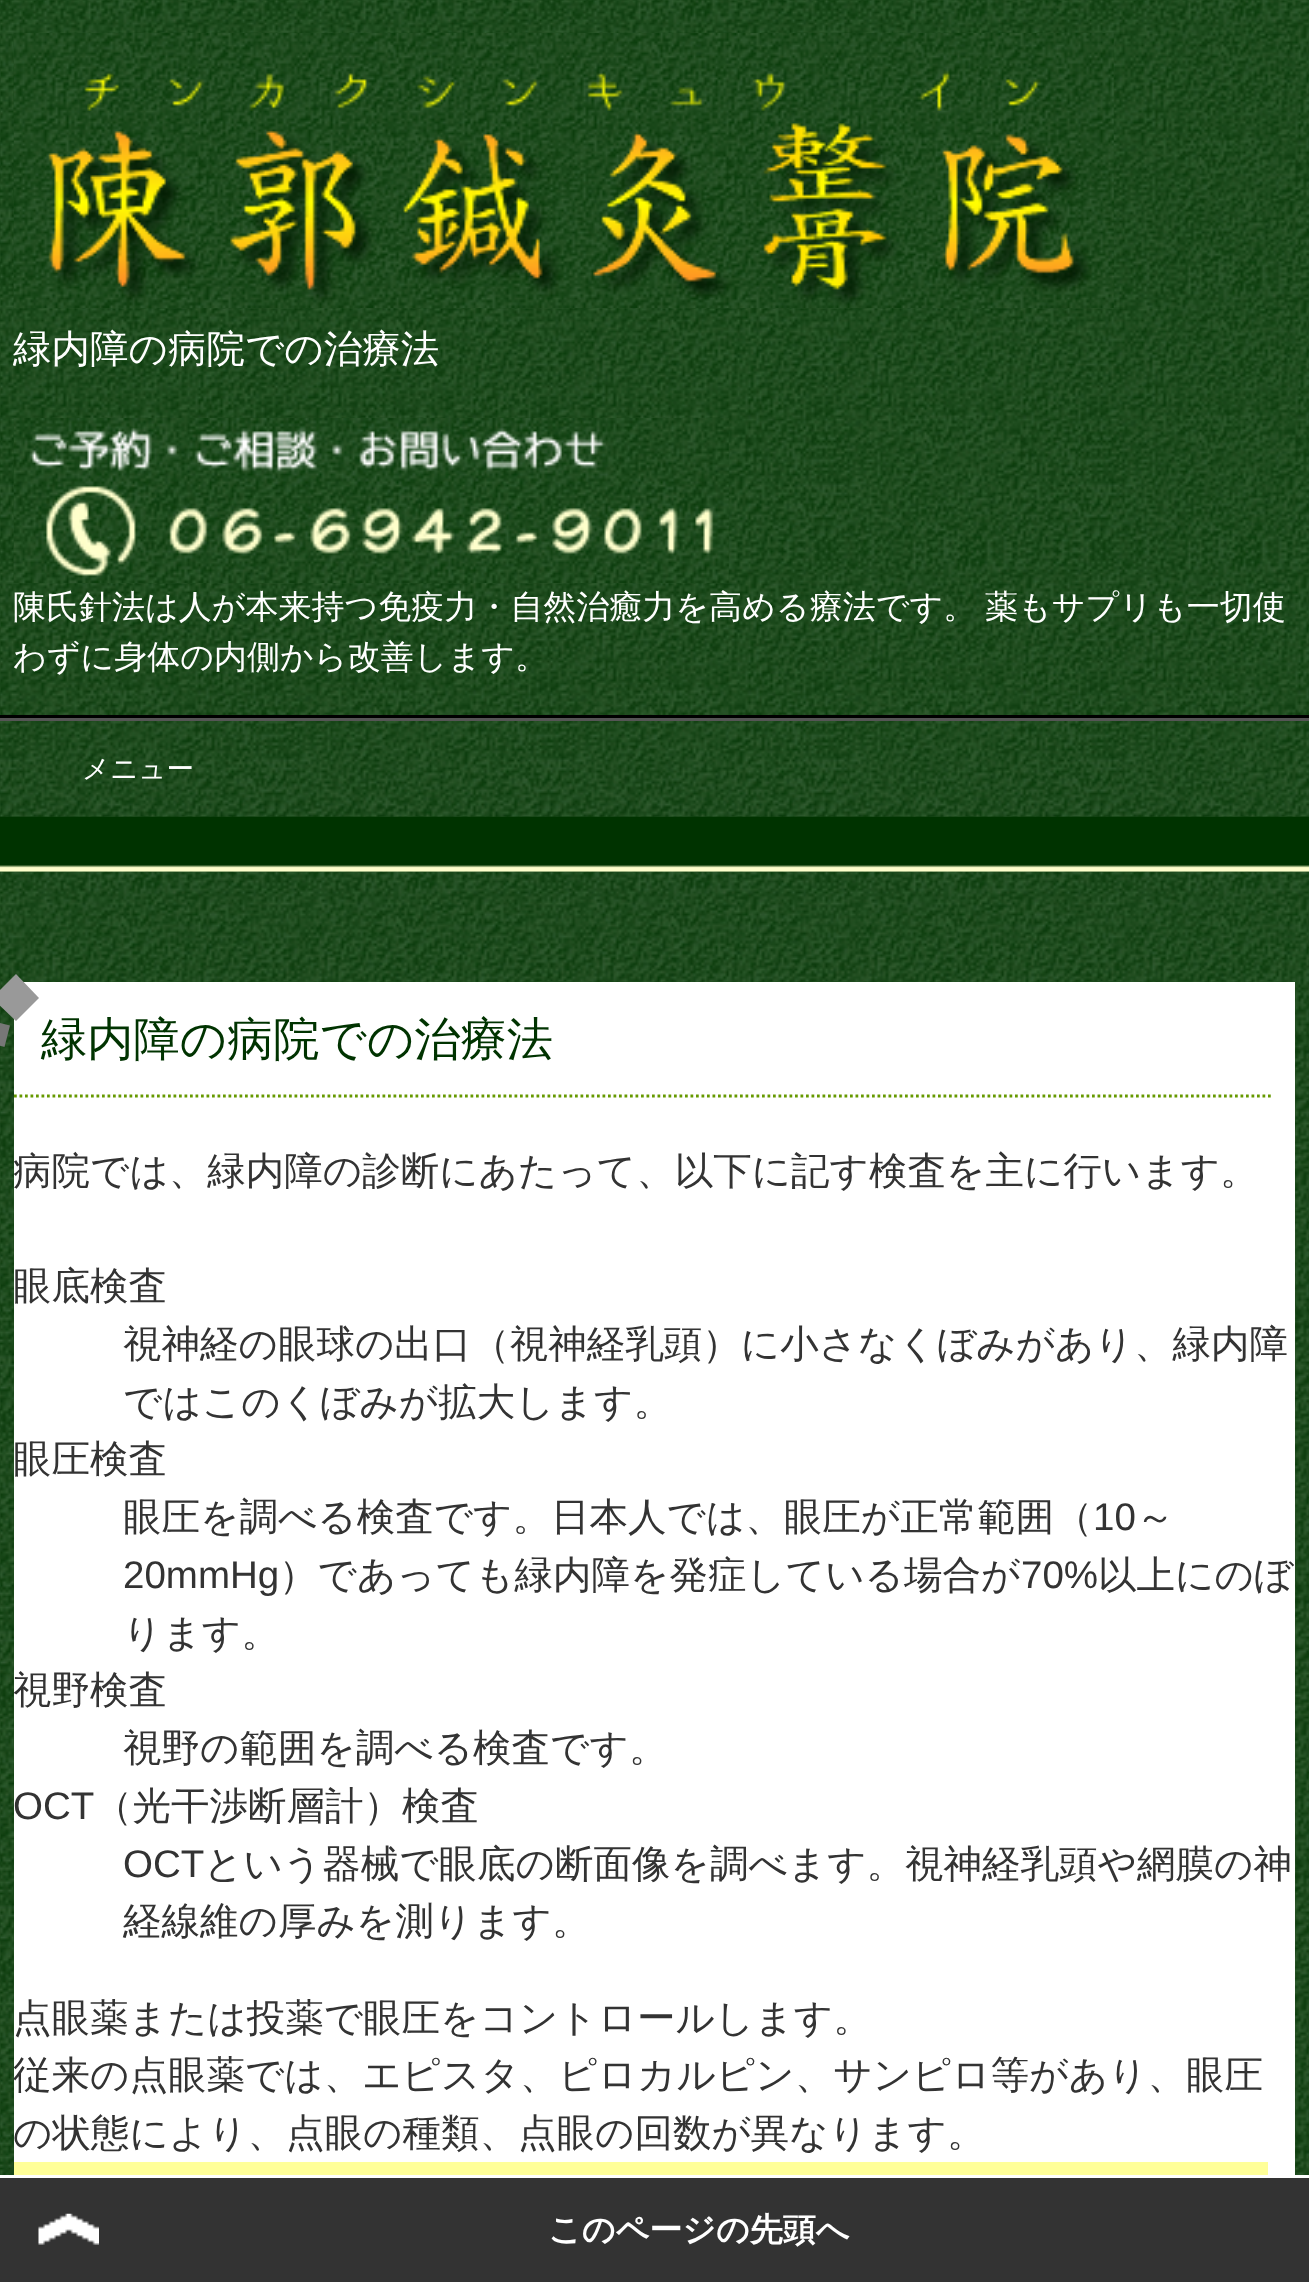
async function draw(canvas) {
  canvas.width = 1309;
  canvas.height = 2282;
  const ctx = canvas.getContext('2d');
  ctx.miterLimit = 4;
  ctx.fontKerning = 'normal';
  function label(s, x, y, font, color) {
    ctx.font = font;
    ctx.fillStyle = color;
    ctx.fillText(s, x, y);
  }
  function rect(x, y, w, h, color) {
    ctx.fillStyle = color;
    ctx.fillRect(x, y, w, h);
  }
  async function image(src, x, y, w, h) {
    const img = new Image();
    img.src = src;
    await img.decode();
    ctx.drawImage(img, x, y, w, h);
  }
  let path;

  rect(0, 0, 1309, 2282, '#fff');
  await image('assets/img1.png', 0, 0, 1309, 872);
  rect(0, 715, 1309, 3, '#000');
  await image('assets/img2.png', 13, 33, 1101, 275);
  label('緑内障の病院での治療法', 13, 362, '500 38.5px WenQuanYi Zen Hei', '#fff');
  await image('assets/img3.png', 13, 418, 716, 165);
  label('陳氏針法は人が本来持つ免疫力・自然治癒力を高める療法です。', 13, 618, '500 33px WenQuanYi Zen Hei', '#fff');
  label('薬もサプリも一切使', 985, 618, '500 33px WenQuanYi Zen Hei', '#fff');
  label('わずに身体の内側から改善します。', 13, 668, '500 33px WenQuanYi Zen Hei', '#fff');
  rect(0, 718, 1309, 3, '#555');
  label('メニュー', 82, 778, '500 27.5px WenQuanYi Zen Hei', '#fff');
  await image('assets/img4.png', 0, 816, 1309, 56);
  await image('assets/img5.png', 0, 871, 1309, 1304);
  rect(14, 982, 1281, 1193, '#fff');
  path = new Path2D('M14 1096H1273');
  ctx.strokeStyle = '#690';
  ctx.lineWidth = 2.8;
  ctx.setLineDash([2.75, 2.75]);
  ctx.stroke(path);
  ctx.fillStyle = '#999';
  path = new Path2D('M16 974L39 998L16 1021L-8 998Z');
  ctx.fill(path);
  ctx.fillStyle = '#777';
  path = new Path2D('M-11 1020L10 1025.5L4.5 1047L-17 1041Z');
  ctx.fill(path);
  label('緑内障の病院での治療法', 41, 1055, '500 46.25px WenQuanYi Zen Hei', '#030');
  label('病院では、緑内障の診断にあたって、以下に記す検査を主に行います。', 13, 1184, '500 38.5px WenQuanYi Zen Hei', '#333');
  label('眼底検査', 13, 1299, '500 38.5px WenQuanYi Zen Hei', '#333');
  label('視神経の眼球の出口（視神経乳頭）に小さなくぼみがあり、緑内障', 123, 1357, '500 38.5px WenQuanYi Zen Hei', '#333');
  label('ではこのくぼみが拡大します。', 123, 1415, '500 38.5px WenQuanYi Zen Hei', '#333');
  label('眼圧検査', 13, 1472, '500 38.5px WenQuanYi Zen Hei', '#333');
  label('眼圧を調べる検査です。日本人では、眼圧が正常範囲（', 123, 1530, '500 38.5px WenQuanYi Zen Hei', '#333');
  label('10', 1093, 1530, '38.5px Liberation Sans', '#333');
  label('～', 1136, 1530, '500 38.5px WenQuanYi Zen Hei', '#333');
  label('20mmHg', 123, 1588, '38.5px Liberation Sans', '#333');
  label('）であっても緑内障を発症している場合が', 279, 1588, '500 38.5px WenQuanYi Zen Hei', '#333');
  label('70%', 1021, 1588, '38.5px Liberation Sans', '#333');
  label('以上にのぼ', 1098, 1588, '500 38.5px WenQuanYi Zen Hei', '#333');
  label('ります。', 123, 1646, '500 38.5px WenQuanYi Zen Hei', '#333');
  label('視野検査', 13, 1703, '500 38.5px WenQuanYi Zen Hei', '#333');
  label('視野の範囲を調べる検査です。', 123, 1761, '500 38.5px WenQuanYi Zen Hei', '#333');
  label('OCT', 13, 1819, '38.5px Liberation Sans', '#333');
  label('（光干渉断層計）検査', 94, 1819, '500 38.5px WenQuanYi Zen Hei', '#333');
  label('OCT', 123, 1877, '38.5px Liberation Sans', '#333');
  label('という器械で眼底の断面像を調べます。視神経乳頭や網膜の神', 204, 1877, '500 38.5px WenQuanYi Zen Hei', '#333');
  label('経線維の厚みを測ります。', 123, 1934, '500 38.5px WenQuanYi Zen Hei', '#333');
  label('点眼薬または投薬で眼圧をコントロールします。', 13, 2031, '500 38.5px WenQuanYi Zen Hei', '#333');
  label('従来の点眼薬では、エピスタ、ピロカルピン、サンピロ等があり、眼圧', 13, 2088, '500 38.5px WenQuanYi Zen Hei', '#333');
  label('の状態により、点眼の種類、点眼の回数が異なります。', 13, 2146, '500 38.5px WenQuanYi Zen Hei', '#333');
  rect(14, 2162, 1254, 13, '#ff9');
  rect(0, 2178, 1309, 104, '#333');
  await image('assets/img6.png', 38, 2213, 61, 32);
  label('このページの先頭へ', 548, 2241, 'bold 33px WenQuanYi Zen Hei', '#fff');
}

draw(document.querySelector('canvas'));
